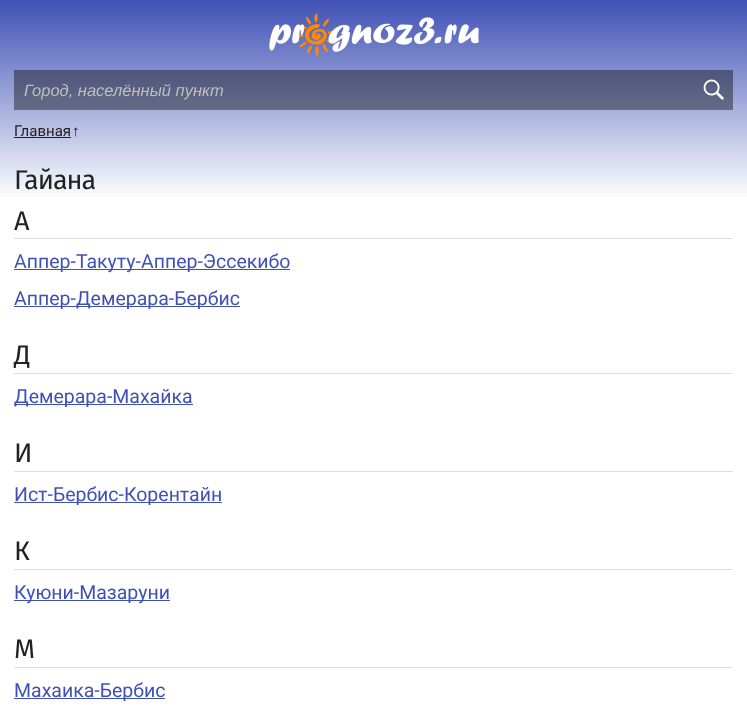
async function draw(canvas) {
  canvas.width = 747;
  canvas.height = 725;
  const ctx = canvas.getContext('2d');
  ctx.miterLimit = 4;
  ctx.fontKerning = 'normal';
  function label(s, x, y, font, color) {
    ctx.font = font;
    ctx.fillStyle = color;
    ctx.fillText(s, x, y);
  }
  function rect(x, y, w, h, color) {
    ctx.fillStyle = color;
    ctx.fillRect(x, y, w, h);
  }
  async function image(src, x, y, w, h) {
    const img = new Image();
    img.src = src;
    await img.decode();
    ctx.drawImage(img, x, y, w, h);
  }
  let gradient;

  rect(0, 0, 747, 725, '#fff');
  gradient = ctx.createLinearGradient(374, 200, 374, 0);
  gradient.addColorStop(0, '#fff');
  gradient.addColorStop(1, '#3f51b5');
  ctx.fillStyle = gradient;
  ctx.fillRect(0, 0, 747, 197);
  gradient = ctx.createLinearGradient(374, 200, 374, 0);
  gradient.addColorStop(0, '#999');
  gradient.addColorStop(1, '#26316d');
  ctx.fillStyle = gradient;
  ctx.fillRect(14, 70, 719, 40);
  await image('assets/img1.png', 299, 13, 37, 43);
  await image('assets/img2.png', 269, 17, 210, 35);
  label('Город, населённый пункт', 24, 96, 'italic 16.5px Liberation Sans', '#bfbfbf');
  await image('assets/img3.png', 703, 79, 21, 21);
  label('Главная', 14, 136, '15px Roboto', '#222');
  rect(14, 137, 57, 1, '#222');
  label('↑', 72, 136, '15px Liberation Sans', '#222');
  ctx.letterSpacing = '-1px';
  label('Гайана', 14, 189, '27px Fira Sans', '#222');
  rect(14, 238, 719, 1, '#ddd');
  label('А', 14, 230, '27px Fira Sans', '#222');
  rect(14, 269, 276, 1, '#3f51b5');
  ctx.letterSpacing = '0px';
  label('Аппер-Такуту-Аппер-Эссекибо', 14, 268, '19.5px Roboto', '#3f51b5');
  rect(14, 306, 226, 1, '#3f51b5');
  label('Аппер-Демерара-Бербис', 14, 305, '19.5px Roboto', '#3f51b5');
  rect(14, 373, 719, 1, '#ddd');
  ctx.letterSpacing = '-1px';
  label('Д', 14, 364, '27px Fira Sans', '#222');
  rect(14, 404, 179, 1, '#3f51b5');
  ctx.letterSpacing = '0px';
  label('Демерара-Махайка', 14, 403, '19.5px Roboto', '#3f51b5');
  rect(14, 471, 719, 1, '#ddd');
  ctx.letterSpacing = '-1px';
  label('И', 14, 462, '27px Fira Sans', '#222');
  rect(14, 502, 208, 1, '#3f51b5');
  ctx.letterSpacing = '0px';
  label('Ист-Бербис-Корентайн', 14, 501, '19.5px Roboto', '#3f51b5');
  rect(14, 569, 719, 1, '#ddd');
  ctx.letterSpacing = '-1px';
  label('К', 14, 560, '27px Fira Sans', '#222');
  rect(14, 600, 156, 1, '#3f51b5');
  ctx.letterSpacing = '0px';
  label('Куюни-Мазаруни', 14, 599, '19.5px Roboto', '#3f51b5');
  rect(14, 667, 719, 1, '#ddd');
  ctx.letterSpacing = '-1px';
  label('М', 14, 658, '27px Fira Sans', '#222');
  rect(14, 698, 151, 1, '#3f51b5');
  ctx.letterSpacing = '0px';
  label('Махаика-Бербис', 14, 697, '19.5px Roboto', '#3f51b5');
}

draw(document.querySelector('canvas'));
